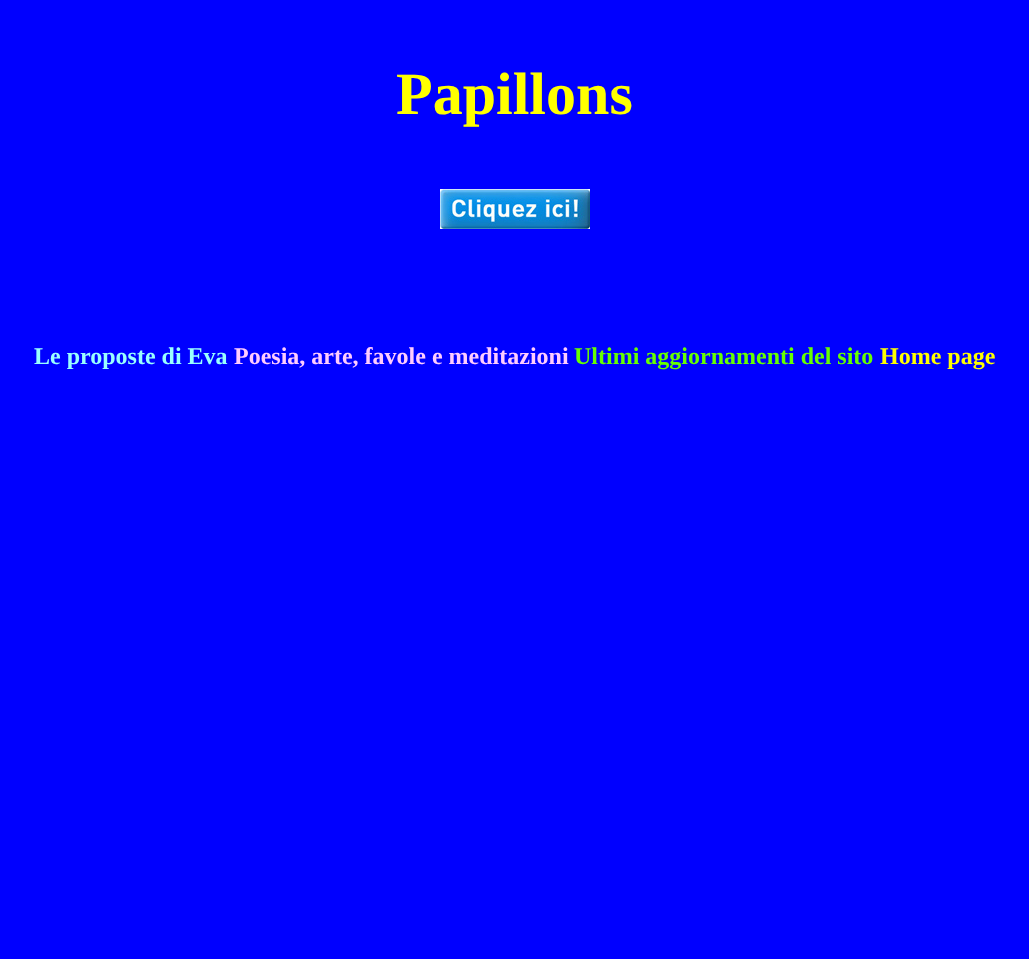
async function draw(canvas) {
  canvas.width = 1029;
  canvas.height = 959;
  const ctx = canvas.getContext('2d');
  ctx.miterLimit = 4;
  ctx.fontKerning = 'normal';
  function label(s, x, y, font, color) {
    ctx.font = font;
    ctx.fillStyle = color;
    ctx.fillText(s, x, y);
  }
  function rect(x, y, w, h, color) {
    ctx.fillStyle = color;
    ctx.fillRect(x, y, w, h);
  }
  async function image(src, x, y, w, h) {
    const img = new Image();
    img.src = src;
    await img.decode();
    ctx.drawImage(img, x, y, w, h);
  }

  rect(0, 0, 1029, 959, '#00f');
  label('Papillons', 396, 114, 'bold 60px Liberation Serif', '#ff0');
  await image('assets/img1.png', 440, 189, 150, 40);
  label('Le proposte di Eva', 34, 364, 'bold 24px Liberation Serif', '#9ff');
  label('Poesia, arte, favole e meditazioni', 234, 364, 'bold 24px Liberation Serif', '#fcf');
  label('Ultimi aggiornamenti del sito', 574, 364, 'bold 24px Liberation Serif', '#6f0');
  label('Home page', 880, 364, 'bold 24px Liberation Serif', '#ff0');
}

draw(document.querySelector('canvas'));
